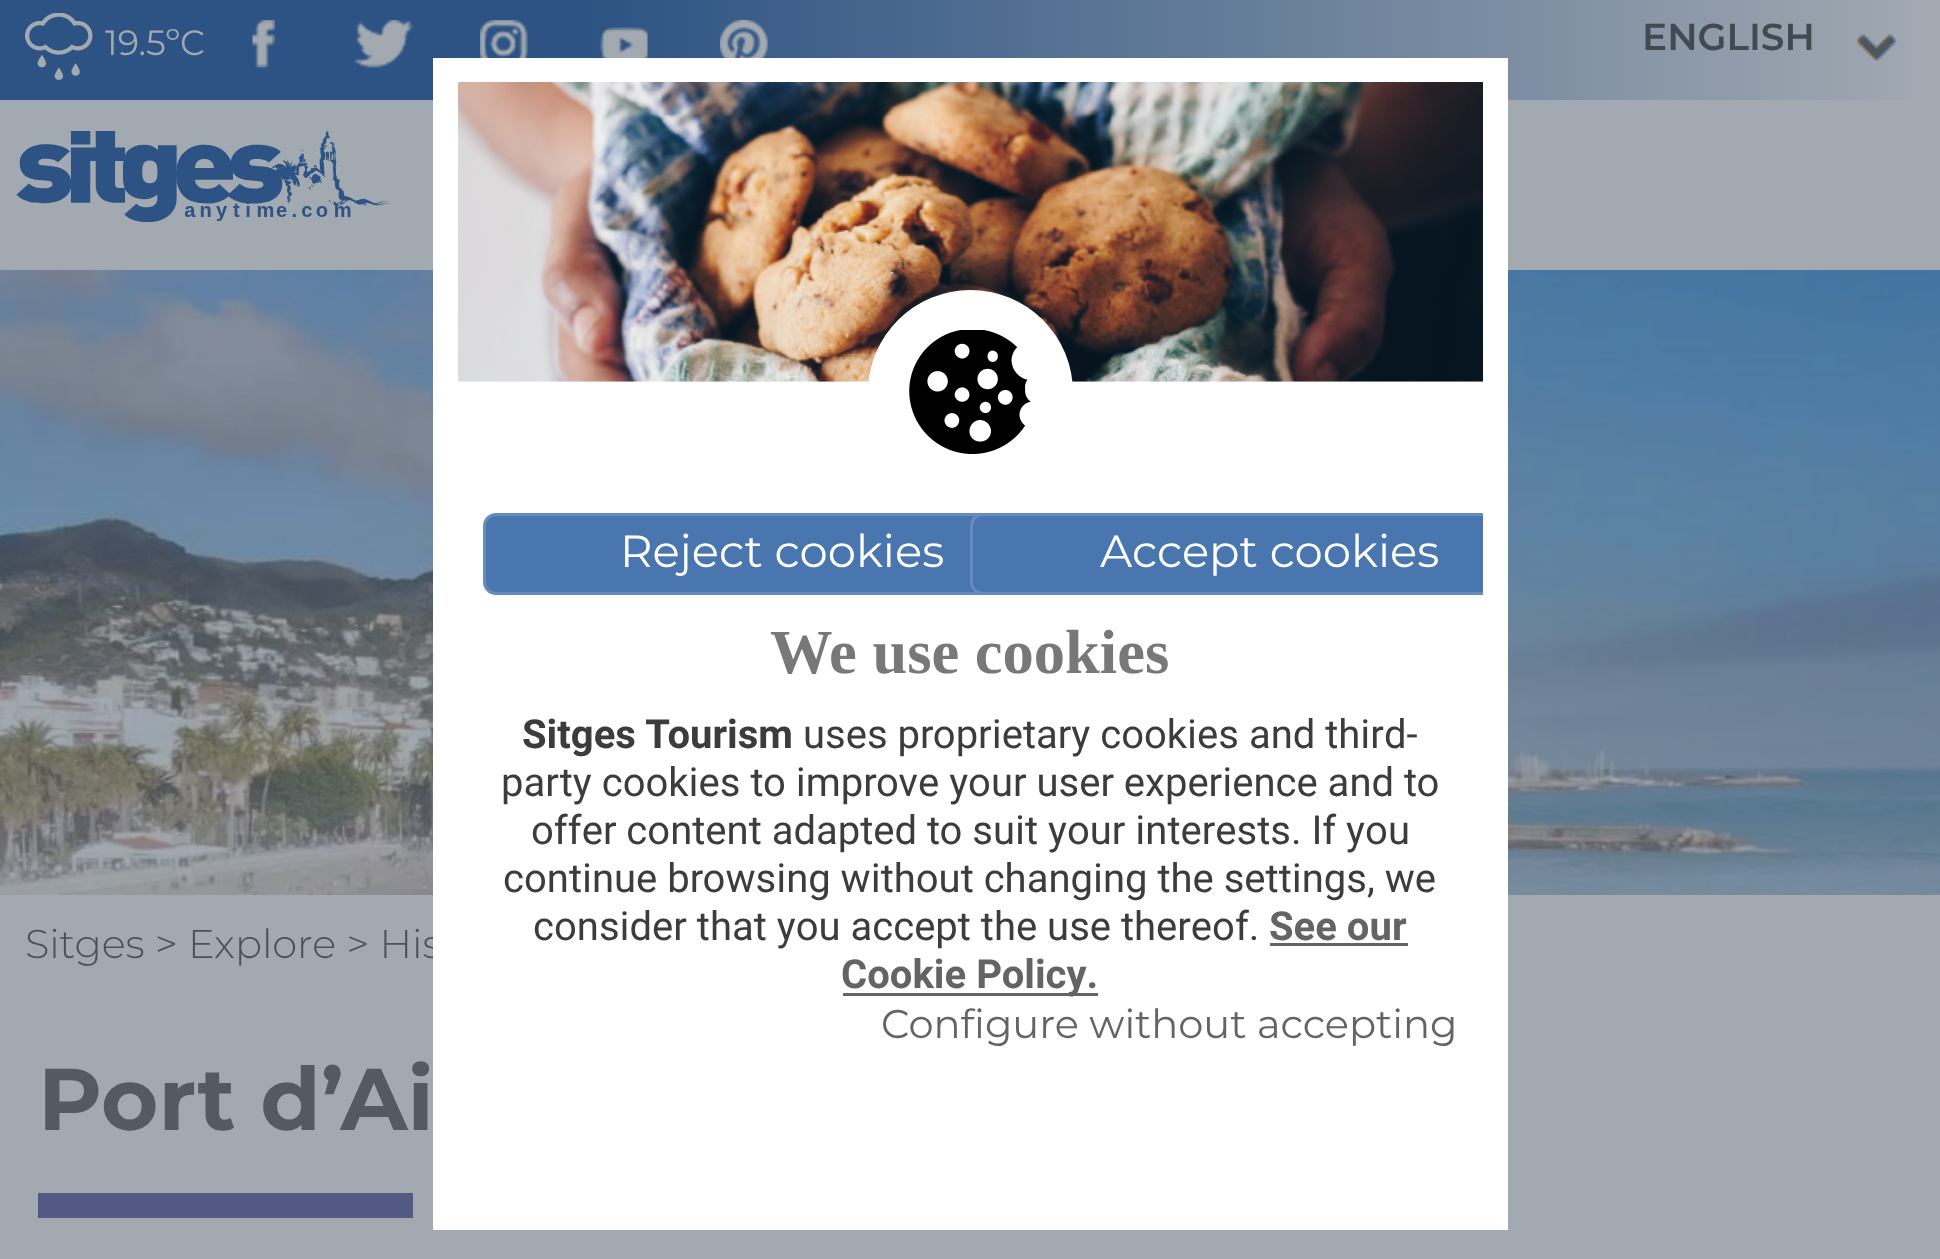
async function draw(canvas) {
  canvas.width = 1940;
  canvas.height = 1259;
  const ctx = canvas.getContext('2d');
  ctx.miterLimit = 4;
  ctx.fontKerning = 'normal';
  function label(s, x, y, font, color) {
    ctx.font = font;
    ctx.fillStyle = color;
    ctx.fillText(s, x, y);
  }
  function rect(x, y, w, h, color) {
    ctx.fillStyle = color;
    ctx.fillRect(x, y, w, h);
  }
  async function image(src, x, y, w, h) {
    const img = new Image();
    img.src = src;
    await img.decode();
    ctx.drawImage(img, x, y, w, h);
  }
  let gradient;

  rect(0, 0, 1940, 1259, '#a2a9b1');
  gradient = ctx.createLinearGradient(0, 50, 1940, 50);
  gradient.addColorStop(0.3, '#2c5383');
  gradient.addColorStop(1, '#a2a9b1');
  ctx.fillStyle = gradient;
  ctx.fillRect(0, 0, 1911, 100);
  await image('assets/img1.png', 25, 13, 68, 67);
  label('19.5ºC', 105, 55, '35px Montserrat', '#a2a9b1');
  await image('assets/img2.png', 252, 20, 23, 48);
  await image('assets/img3.png', 355, 20, 58, 48);
  await image('assets/img4.png', 480, 20, 48, 38);
  await image('assets/img5.png', 600, 27, 48, 31);
  await image('assets/img6.png', 720, 20, 48, 38);
  label('ENGLISH', 1642, 50, '600 37.5px Montserrat', '#414951');
  await image('assets/img7.png', 1854, 34, 44, 27);
  await image('assets/img8.png', 16, 129, 374, 93);
  await image('assets/img9.png', 0, 270, 1940, 625);
  label('Sitges > Explore > His', 25, 958, '300 40px Montserrat', '#4a5259');
  label('Port d’Ai', 38, 1130, 'bold 87.5px Montserrat', '#535a62');
  rect(38, 1193, 375, 25, '#525a83');
  rect(433, 58, 1075, 1172, '#fff');
  await image('assets/img10.png', 458, 82, 1025, 300);
  ctx.beginPath();
  ctx.arc(970.5, 392.5, 102.5, 0, 2 * Math.PI);
  ctx.fill();
  await image('assets/img11.png', 909, 330, 122, 124);
  ctx.fillStyle = '#4a76b0';
  ctx.beginPath();
  ctx.roundRect(484.5, 514.5, 597, 79, 11.5);
  ctx.fill();
  ctx.strokeStyle = '#668cbf';
  ctx.lineWidth = 3;
  ctx.stroke();
  label('Reject cookies', 620, 567, '45px Montserrat', '#fff');
  ctx.fillStyle = '#4a76b0';
  ctx.beginPath();
  ctx.roundRect(970, 513, 513, 82, [13, 0, 0, 13]);
  ctx.fill();
  ctx.save();
  ctx.beginPath();
  ctx.rect(458, 443, 1025, 607);
  ctx.clip();
  ctx.beginPath();
  ctx.roundRect(971.5, 514.5, 597, 79, 11.5);
  ctx.stroke();
  ctx.restore();
  label('Accept cookies', 1100, 567, '45px Montserrat', '#fff');
  label('We use cookies', 770, 673, 'bold 62.5px Liberation Serif', '#787878');
  label('Sitges Tourism', 522, 748, 'bold 40px Heebo', '#3c3c3c');
  label('uses proprietary cookies and third-', 803, 748, '40px Heebo', '#3c3c3c');
  label('party cookies to improve your user experience and to', 501, 796, '40px Heebo', '#3c3c3c');
  label('offer content adapted to suit your interests. If you', 531, 844, '40px Heebo', '#3c3c3c');
  label('continue browsing without changing the settings, we', 503, 892, '40px Heebo', '#3c3c3c');
  label('consider that you accept the use thereof.', 533, 940, '40px Heebo', '#3c3c3c');
  label('See our', 1269, 940, 'bold 40px Heebo', '#646464');
  rect(1270, 943, 138, 3, '#646464');
  rect(843, 993, 255, 3, '#646464');
  label('Cookie Policy.', 841, 988, 'bold 40px Heebo', '#646464');
  label('Configure without accepting', 881, 1038, '40px Montserrat', '#646464');
}

draw(document.querySelector('canvas'));
